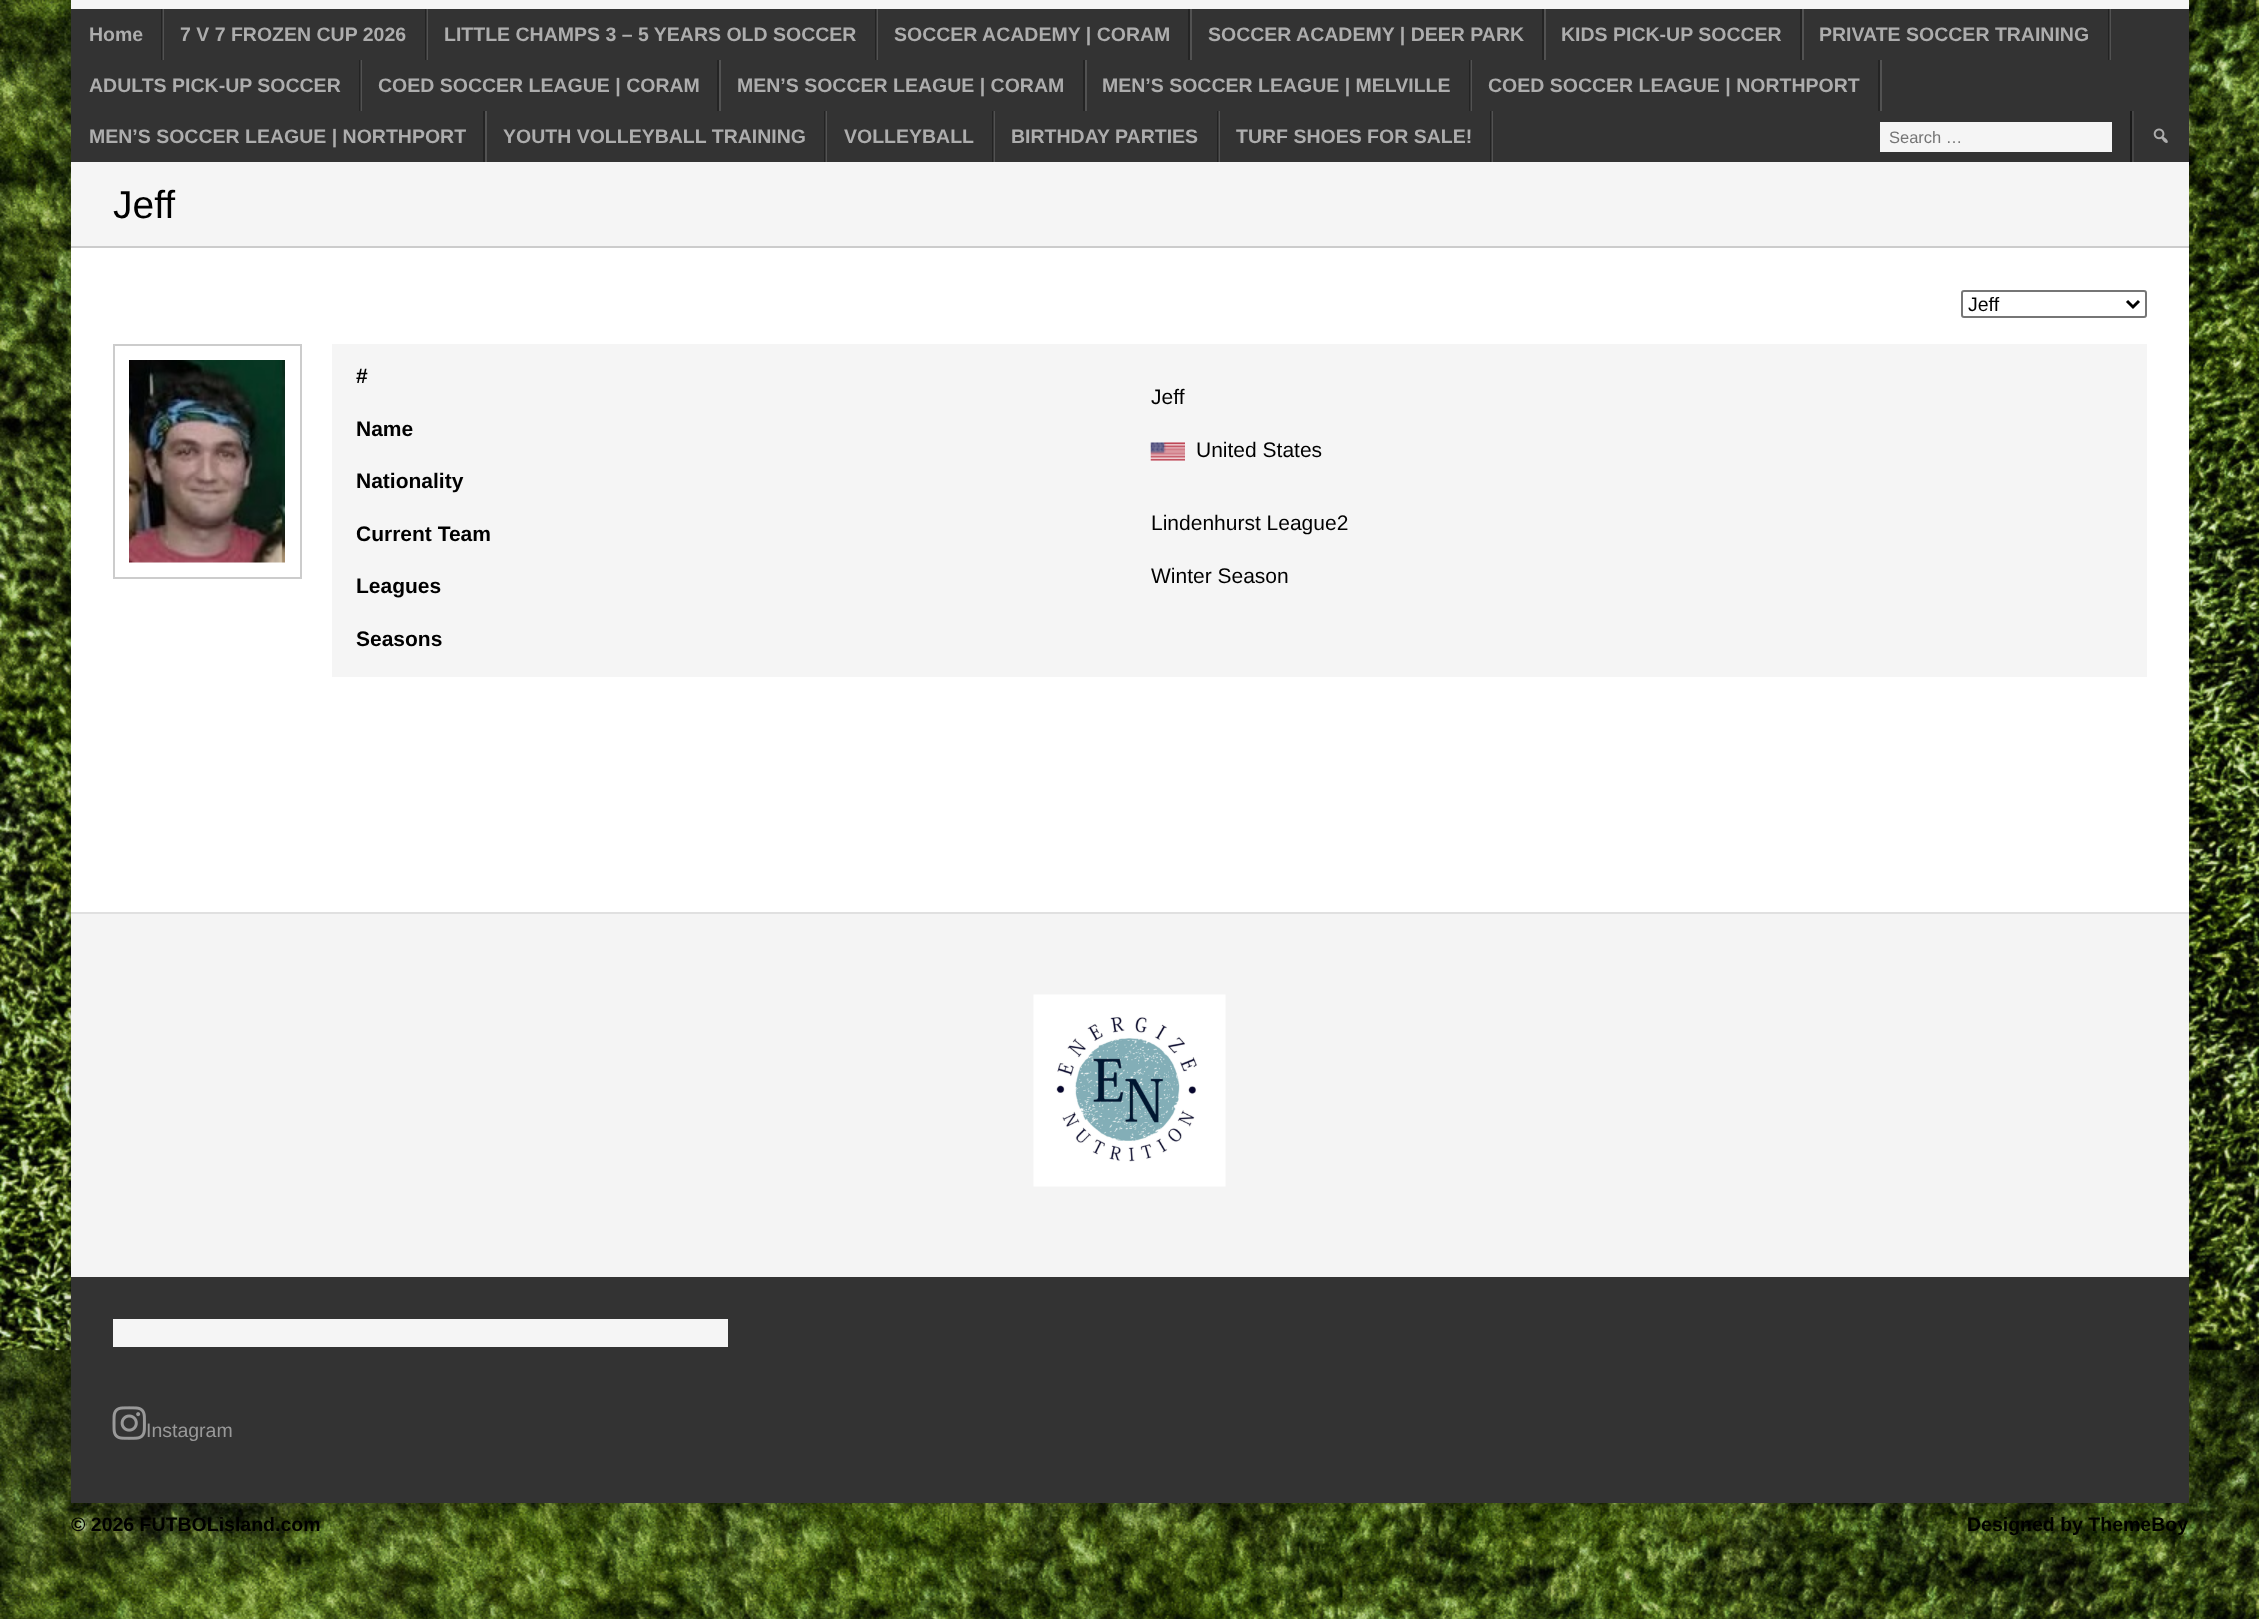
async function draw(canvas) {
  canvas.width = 2259;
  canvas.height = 1619;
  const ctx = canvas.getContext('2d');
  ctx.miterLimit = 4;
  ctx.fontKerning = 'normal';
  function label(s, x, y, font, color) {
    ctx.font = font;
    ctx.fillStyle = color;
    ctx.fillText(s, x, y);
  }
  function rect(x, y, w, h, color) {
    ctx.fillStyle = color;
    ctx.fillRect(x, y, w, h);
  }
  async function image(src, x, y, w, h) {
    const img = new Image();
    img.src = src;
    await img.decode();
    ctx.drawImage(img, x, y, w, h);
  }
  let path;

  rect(0, 0, 2259, 1619, '#fff');
  await image('assets/img1.png', 0, 0, 2259, 1619);
  ctx.fillStyle = '#00000033';
  ctx.filter = 'blur(9px)';
  ctx.beginPath();
  ctx.rect(71, -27, 2118, 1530);
  ctx.fill();
  ctx.filter = 'none';
  rect(71, 0, 2118, 9, '#f5f5f5');
  rect(71, 9, 2118, 153, '#333');
  rect(162, 9, 2, 51, '#525252');
  rect(161, 9, 2, 51, '#0000004d');
  label('Home', 89, 41, 'bold 19.5px Liberation Sans', '#adadad');
  rect(426, 9, 2, 51, '#525252');
  rect(425, 9, 2, 51, '#0000004d');
  label('7 V 7 FROZEN CUP 2026', 180, 41, 'bold 19.5px Liberation Sans', '#adadad');
  rect(876, 9, 2, 51, '#525252');
  rect(875, 9, 2, 51, '#0000004d');
  label('LITTLE CHAMPS 3 – 5 YEARS OLD SOCCER', 444, 41, 'bold 19.5px Liberation Sans', '#adadad');
  rect(1190, 9, 2, 51, '#525252');
  rect(1188, 9, 2, 51, '#242424');
  label('SOCCER ACADEMY | CORAM', 894, 41, 'bold 19.5px Liberation Sans', '#adadad');
  rect(1544, 9, 2, 51, '#525252');
  rect(1542, 9, 2, 51, '#242424');
  label('SOCCER ACADEMY | DEER PARK', 1208, 41, 'bold 19.5px Liberation Sans', '#adadad');
  rect(1802, 9, 2, 51, '#525252');
  rect(1800, 9, 2, 51, '#242424');
  label('KIDS PICK-UP SOCCER', 1561, 41, 'bold 19.5px Liberation Sans', '#adadad');
  rect(2109, 9, 2, 51, '#525252');
  rect(2108, 9, 2, 51, '#0000004d');
  label('PRIVATE SOCCER TRAINING', 1819, 41, 'bold 19.5px Liberation Sans', '#adadad');
  rect(360, 60, 2, 51, '#525252');
  rect(359, 60, 2, 51, '#0000004d');
  label('ADULTS PICK-UP SOCCER', 89, 92, 'bold 19.5px Liberation Sans', '#adadad');
  rect(719, 60, 2, 51, '#525252');
  rect(717, 60, 2, 51, '#242424');
  label('COED SOCCER LEAGUE | CORAM', 378, 92, 'bold 19.5px Liberation Sans', '#adadad');
  rect(1085, 60, 2, 51, '#525252');
  rect(1083, 60, 2, 51, '#242424');
  label('MEN’S SOCCER LEAGUE | CORAM', 737, 92, 'bold 19.5px Liberation Sans', '#adadad');
  rect(1470, 60, 2, 51, '#525252');
  rect(1469, 60, 2, 51, '#0000004d');
  label('MEN’S SOCCER LEAGUE | MELVILLE', 1102, 92, 'bold 19.5px Liberation Sans', '#adadad');
  rect(1880, 60, 2, 51, '#525252');
  rect(1878, 60, 2, 51, '#242424');
  label('COED SOCCER LEAGUE | NORTHPORT', 1488, 92, 'bold 19.5px Liberation Sans', '#adadad');
  rect(485, 111, 2, 51, '#525252');
  rect(483, 111, 2, 51, '#242424');
  label('MEN’S SOCCER LEAGUE | NORTHPORT', 89, 143, 'bold 19.5px Liberation Sans', '#adadad');
  rect(825, 111, 2, 51, '#525252');
  rect(824, 111, 2, 51, '#0000004d');
  label('YOUTH VOLLEYBALL TRAINING', 503, 143, 'bold 19.5px Liberation Sans', '#adadad');
  rect(993, 111, 2, 51, '#525252');
  rect(992, 111, 2, 51, '#0000004d');
  label('VOLLEYBALL', 844, 143, 'bold 19.5px Liberation Sans', '#adadad');
  rect(1218, 111, 2, 51, '#525252');
  rect(1217, 111, 2, 51, '#0000004d');
  label('BIRTHDAY PARTIES', 1011, 143, 'bold 19.5px Liberation Sans', '#adadad');
  rect(1491, 111, 2, 51, '#525252');
  rect(1490, 111, 2, 51, '#0000004d');
  label('TURF SHOES FOR SALE!', 1236, 143, 'bold 19.5px Liberation Sans', '#adadad');
  rect(2130, 111, 2, 51, '#1a1a1a');
  rect(1880, 122, 232, 30, '#f5f5f5');
  label('Search …', 1889, 143, '16.5px Liberation Sans', '#757575');
  rect(2132, 111, 2, 51, '#454545');
  await image('assets/img2.png', 2153, 128, 15, 15);
  rect(71, 248, 2118, 664, '#fff');
  rect(71, 162, 2118, 84, '#f5f5f5');
  rect(71, 246, 2118, 2, '#ccc');
  label('Jeff', 113, 218, '39px Liberation Sans', '#000');
  ctx.beginPath();
  ctx.roundRect(1962, 291, 184, 26, 2);
  ctx.strokeStyle = '#767676';
  ctx.lineWidth = 2;
  ctx.stroke();
  path = new Path2D('M2127 301L2133 307L2139 301');
  ctx.strokeStyle = '#000';
  ctx.lineWidth = 3;
  ctx.stroke(path);
  label('Jeff', 1968, 311, '19.5px Liberation Sans', '#000');
  ctx.strokeStyle = '#ccc';
  ctx.lineWidth = 2;
  ctx.strokeRect(114, 345, 187, 233);
  await image('assets/img3.png', 129, 360, 156, 203);
  rect(332, 344, 1815, 333, '#f5f5f5');
  label('#', 356, 383, 'bold 21px Liberation Sans', '#000');
  label('Jeff', 1151, 404, '21px Liberation Sans', '#000');
  label('Name', 356, 436, 'bold 21px Liberation Sans', '#000');
  await image('assets/img4.png', 1150, 442, 35, 19);
  label('United States', 1196, 457, '21px Liberation Sans', '#000');
  label('Nationality', 356, 488, 'bold 21px Liberation Sans', '#000');
  label('Current Team', 356, 541, 'bold 21px Liberation Sans', '#000');
  label('Lindenhurst League2', 1151, 530, '21px Liberation Sans', '#000');
  label('Winter Season', 1151, 583, '21px Liberation Sans', '#000');
  label('Leagues', 356, 593, 'bold 21px Liberation Sans', '#000');
  label('Seasons', 356, 646, 'bold 21px Liberation Sans', '#000');
  rect(71, 914, 2118, 363, '#f4f4f4');
  rect(71, 912, 2118, 2, '#e0e0e0');
  await image('assets/img5.png', 1033, 994, 193, 193);
  rect(71, 1277, 2118, 226, '#333');
  rect(113, 1319, 615, 28, '#f5f5f5');
  await image('assets/img6.png', 112, 1406, 34, 34);
  label('Instagram', 146, 1437, '19.5px Liberation Sans', '#999');
  label('© 2026 FUTBOLisland.com', 71, 1531, 'bold 19.5px Liberation Sans', '#000');
  label('Designed by ThemeBoy', 1967, 1531, 'bold 19.5px Liberation Sans', '#000');
}

draw(document.querySelector('canvas'));
